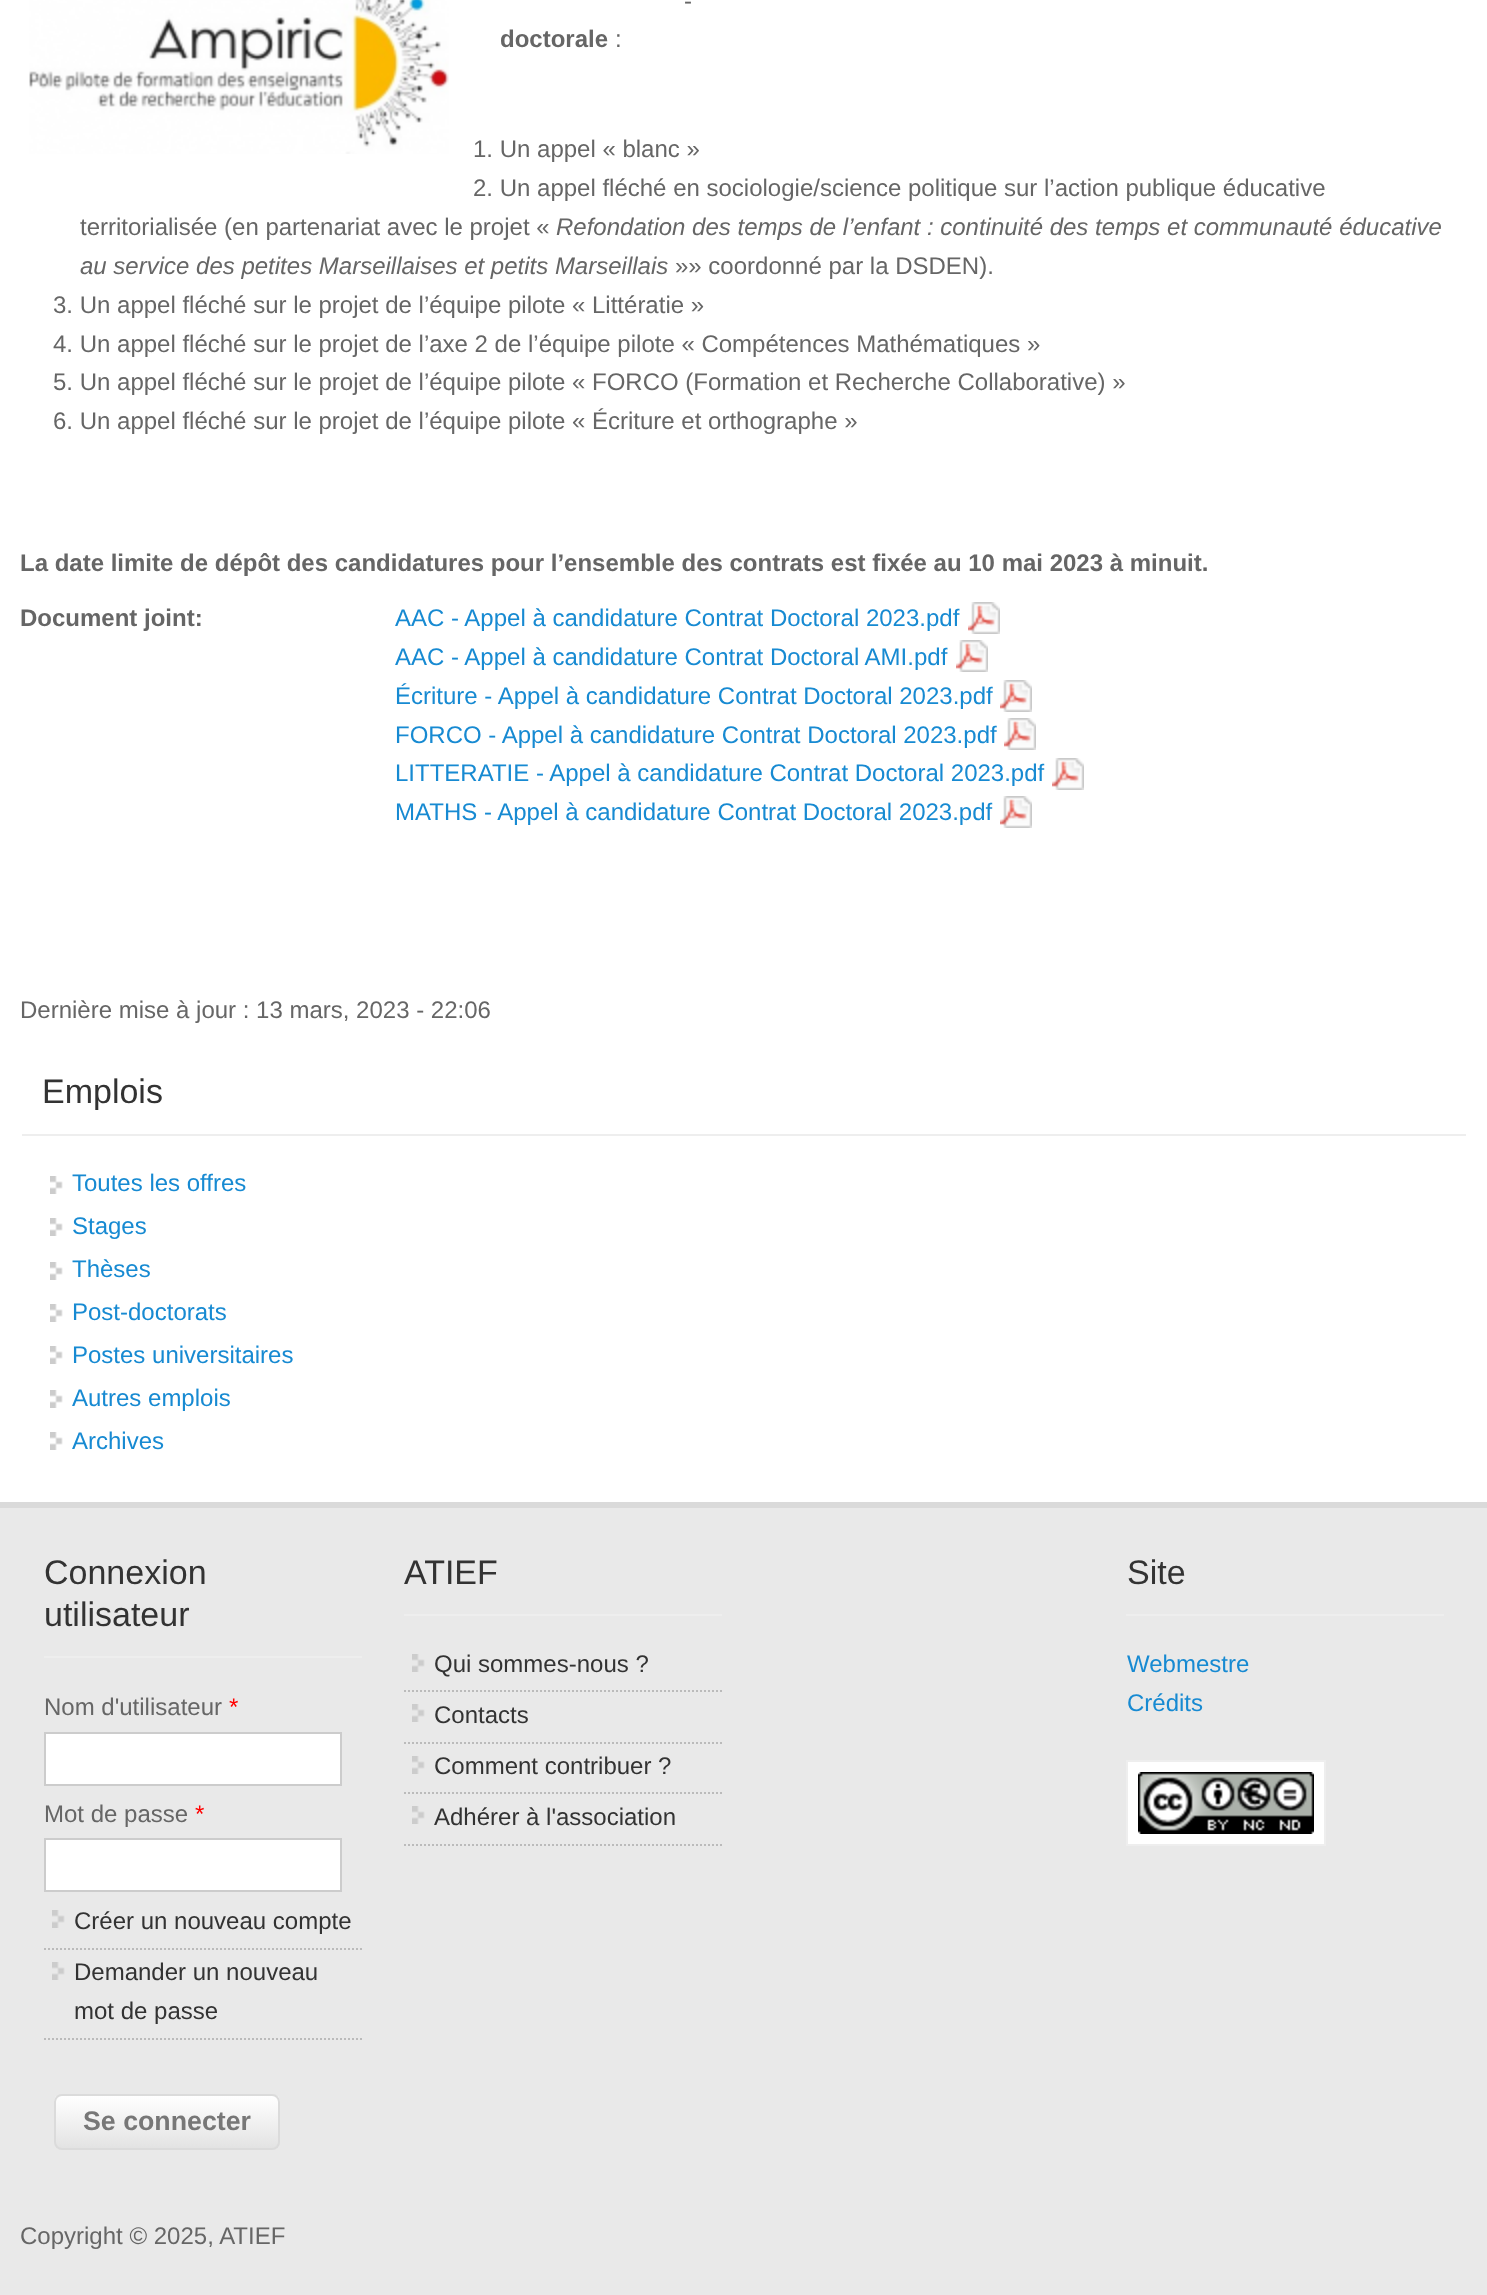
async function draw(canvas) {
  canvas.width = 1487;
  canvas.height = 2295;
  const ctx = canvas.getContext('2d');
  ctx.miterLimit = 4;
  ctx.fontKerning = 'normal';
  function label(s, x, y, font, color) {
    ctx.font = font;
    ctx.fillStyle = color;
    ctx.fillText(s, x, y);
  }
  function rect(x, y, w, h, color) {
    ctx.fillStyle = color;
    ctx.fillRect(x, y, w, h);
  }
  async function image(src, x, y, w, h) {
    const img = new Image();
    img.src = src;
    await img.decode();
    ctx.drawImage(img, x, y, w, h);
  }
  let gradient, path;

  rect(0, 0, 1487, 2295, '#fff');
  await image('assets/img1.png', 29, 0, 420, 154);
  label('-', 684, 9, '24px Liberation Sans', '#666');
  label('doctorale', 500, 47, 'bold 24px Liberation Sans', '#666');
  label(':', 615, 47, '24px Liberation Sans', '#666');
  label('1. Un appel « blanc »', 473, 157, '24px Liberation Sans', '#666');
  label('2. Un appel fléché en sociologie/science politique sur l’action publique éducative', 473, 196, '24px Liberation Sans', '#666');
  label('territorialisée (en partenariat avec le projet «', 80, 235, '24px Liberation Sans', '#666');
  label('Refondation des temps de l’enfant : continuité des temps et communauté éducative', 556, 235, 'italic 24px Liberation Sans', '#666');
  label('au service des petites Marseillaises et petits Marseillais', 80, 274, 'italic 24px Liberation Sans', '#666');
  label('»» coordonné par la DSDEN).', 675, 274, '24px Liberation Sans', '#666');
  label('3. Un appel fléché sur le projet de l’équipe pilote « Littératie »', 53, 313, '24px Liberation Sans', '#666');
  label('4. Un appel fléché sur le projet de l’axe 2 de l’équipe pilote « Compétences Mathématiques »', 53, 352, '24px Liberation Sans', '#666');
  label('5. Un appel fléché sur le projet de l’équipe pilote « FORCO (Formation et Recherche Collaborative) »', 53, 390, '24px Liberation Sans', '#666');
  label('6. Un appel fléché sur le projet de l’équipe pilote « Écriture et orthographe »', 53, 429, '24px Liberation Sans', '#666');
  label('La date limite de dépôt des candidatures pour l’ensemble des contrats est fixée au 10 mai 2023 à minuit.', 20, 571, 'bold 24px Liberation Sans', '#666');
  label('Document joint:', 20, 626, 'bold 24px Liberation Sans', '#666');
  label('AAC - Appel à candidature Contrat Doctoral 2023.pdf', 395, 626, '24px Liberation Sans', '#178ad2');
  await image('assets/img2.png', 968, 602, 32, 32);
  label('AAC - Appel à candidature Contrat Doctoral AMI.pdf', 395, 665, '24px Liberation Sans', '#178ad2');
  await image('assets/img2.png', 956, 640, 32, 32);
  label('Écriture - Appel à candidature Contrat Doctoral 2023.pdf', 395, 704, '24px Liberation Sans', '#178ad2');
  await image('assets/img2.png', 1000, 680, 32, 32);
  label('FORCO - Appel à candidature Contrat Doctoral 2023.pdf', 395, 743, '24px Liberation Sans', '#178ad2');
  await image('assets/img2.png', 1004, 718, 32, 32);
  label('LITTERATIE - Appel à candidature Contrat Doctoral 2023.pdf', 395, 781, '24px Liberation Sans', '#178ad2');
  await image('assets/img2.png', 1052, 758, 32, 32);
  label('MATHS - Appel à candidature Contrat Doctoral 2023.pdf', 395, 820, '24px Liberation Sans', '#178ad2');
  await image('assets/img2.png', 1000, 796, 32, 32);
  label('Dernière mise à jour : 13 mars, 2023 - 22:06', 20, 1018, '24px Liberation Sans', '#666');
  rect(22, 1134, 1444, 2, '#eee');
  label('Emplois', 42, 1103, '34px Liberation Sans', '#333');
  await image('assets/img3.png', 50, 1176, 13, 18);
  label('Toutes les offres', 72, 1191, '24px Liberation Sans', '#178ad2');
  await image('assets/img3.png', 50, 1218, 13, 18);
  label('Stages', 72, 1234, '24px Liberation Sans', '#178ad2');
  await image('assets/img3.png', 50, 1262, 13, 18);
  label('Thèses', 72, 1277, '24px Liberation Sans', '#178ad2');
  await image('assets/img3.png', 50, 1304, 13, 18);
  label('Post-doctorats', 72, 1320, '24px Liberation Sans', '#178ad2');
  await image('assets/img3.png', 50, 1346, 13, 18);
  label('Postes universitaires', 72, 1363, '24px Liberation Sans', '#178ad2');
  await image('assets/img3.png', 50, 1390, 13, 18);
  label('Autres emplois', 72, 1406, '24px Liberation Sans', '#178ad2');
  await image('assets/img3.png', 50, 1432, 13, 18);
  label('Archives', 72, 1449, '24px Liberation Sans', '#178ad2');
  rect(0, 1508, 1487, 787, '#e9e9e9');
  rect(0, 1502, 1487, 6, '#dadada');
  rect(44, 1656, 318, 2, '#eee');
  label('Connexion', 44, 1584, '34px Liberation Sans', '#333');
  label('utilisateur', 44, 1626, '34px Liberation Sans', '#333');
  label('Nom d\'utilisateur', 44, 1715, '24px Liberation Sans', '#666');
  label('*', 229, 1715, '24px Liberation Sans', '#f00');
  ctx.fillStyle = '#fff';
  ctx.beginPath();
  ctx.rect(45, 1733, 296, 52);
  ctx.fill();
  ctx.strokeStyle = '#ccc';
  ctx.lineWidth = 2;
  ctx.stroke();
  label('Mot de passe', 44, 1822, '24px Liberation Sans', '#666');
  label('*', 195, 1822, '24px Liberation Sans', '#f00');
  ctx.fillStyle = '#fff';
  ctx.beginPath();
  ctx.rect(45, 1839, 296, 52);
  ctx.fill();
  ctx.stroke();
  await image('assets/img4.png', 52, 1910, 13, 18);
  path = new Path2D('M44 1949H362');
  ctx.strokeStyle = '#bbb';
  ctx.setLineDash([2, 2]);
  ctx.stroke(path);
  label('Créer un nouveau compte', 74, 1929, '24px Liberation Sans', '#333');
  await image('assets/img4.png', 52, 1962, 13, 18);
  path = new Path2D('M44 2039H362');
  ctx.stroke(path);
  label('Demander un nouveau', 74, 1980, '24px Liberation Sans', '#333');
  label('mot de passe', 74, 2019, '24px Liberation Sans', '#333');
  ctx.save();
  ctx.beginPath();
  ctx.roundRect(54, 2094, 226, 56, 8);
  ctx.clip();
  gradient = ctx.createLinearGradient(167, 2096, 167, 2148);
  gradient.addColorStop(0, '#fff');
  gradient.addColorStop(1, '#e3e3e3');
  ctx.fillStyle = gradient;
  ctx.fillRect(54, 2096, 226, 52);
  ctx.restore();
  ctx.beginPath();
  ctx.roundRect(55, 2095, 224, 54, 7);
  ctx.strokeStyle = '#dbdbdb';
  ctx.setLineDash([]);
  ctx.stroke();
  label('Se connecter', 83, 2130, 'bold 26.75px Liberation Sans', '#777');
  rect(404, 1614, 318, 2, '#eee');
  label('ATIEF', 404, 1584, '34px Liberation Sans', '#333');
  await image('assets/img4.png', 412, 1654, 13, 18);
  path = new Path2D('M404 1691H722');
  ctx.strokeStyle = '#bbb';
  ctx.setLineDash([2, 2]);
  ctx.stroke(path);
  label('Qui sommes-nous ?', 434, 1672, '24px Liberation Sans', '#333');
  await image('assets/img4.png', 412, 1704, 13, 18);
  path = new Path2D('M404 1743H722');
  ctx.stroke(path);
  label('Contacts', 434, 1723, '24px Liberation Sans', '#333');
  await image('assets/img4.png', 412, 1756, 13, 18);
  path = new Path2D('M404 1793H722');
  ctx.stroke(path);
  label('Comment contribuer ?', 434, 1774, '24px Liberation Sans', '#333');
  await image('assets/img4.png', 412, 1806, 13, 18);
  path = new Path2D('M404 1845H722');
  ctx.stroke(path);
  label('Adhérer à l\'association', 434, 1825, '24px Liberation Sans', '#333');
  rect(1126, 1614, 318, 2, '#eee');
  label('Site', 1127, 1584, '34px Liberation Sans', '#333');
  label('Webmestre', 1127, 1672, '24px Liberation Sans', '#178ad2');
  label('Crédits', 1127, 1711, '24px Liberation Sans', '#178ad2');
  ctx.fillStyle = '#fff';
  ctx.beginPath();
  ctx.rect(1127, 1761, 198, 84);
  ctx.fill();
  ctx.strokeStyle = '#eee';
  ctx.setLineDash([]);
  ctx.stroke();
  await image('assets/img5.png', 1138, 1772, 176, 62);
  label('Copyright © 2025, ATIEF', 20, 2244, '24px Liberation Sans', '#666');
}

draw(document.querySelector('canvas'));
